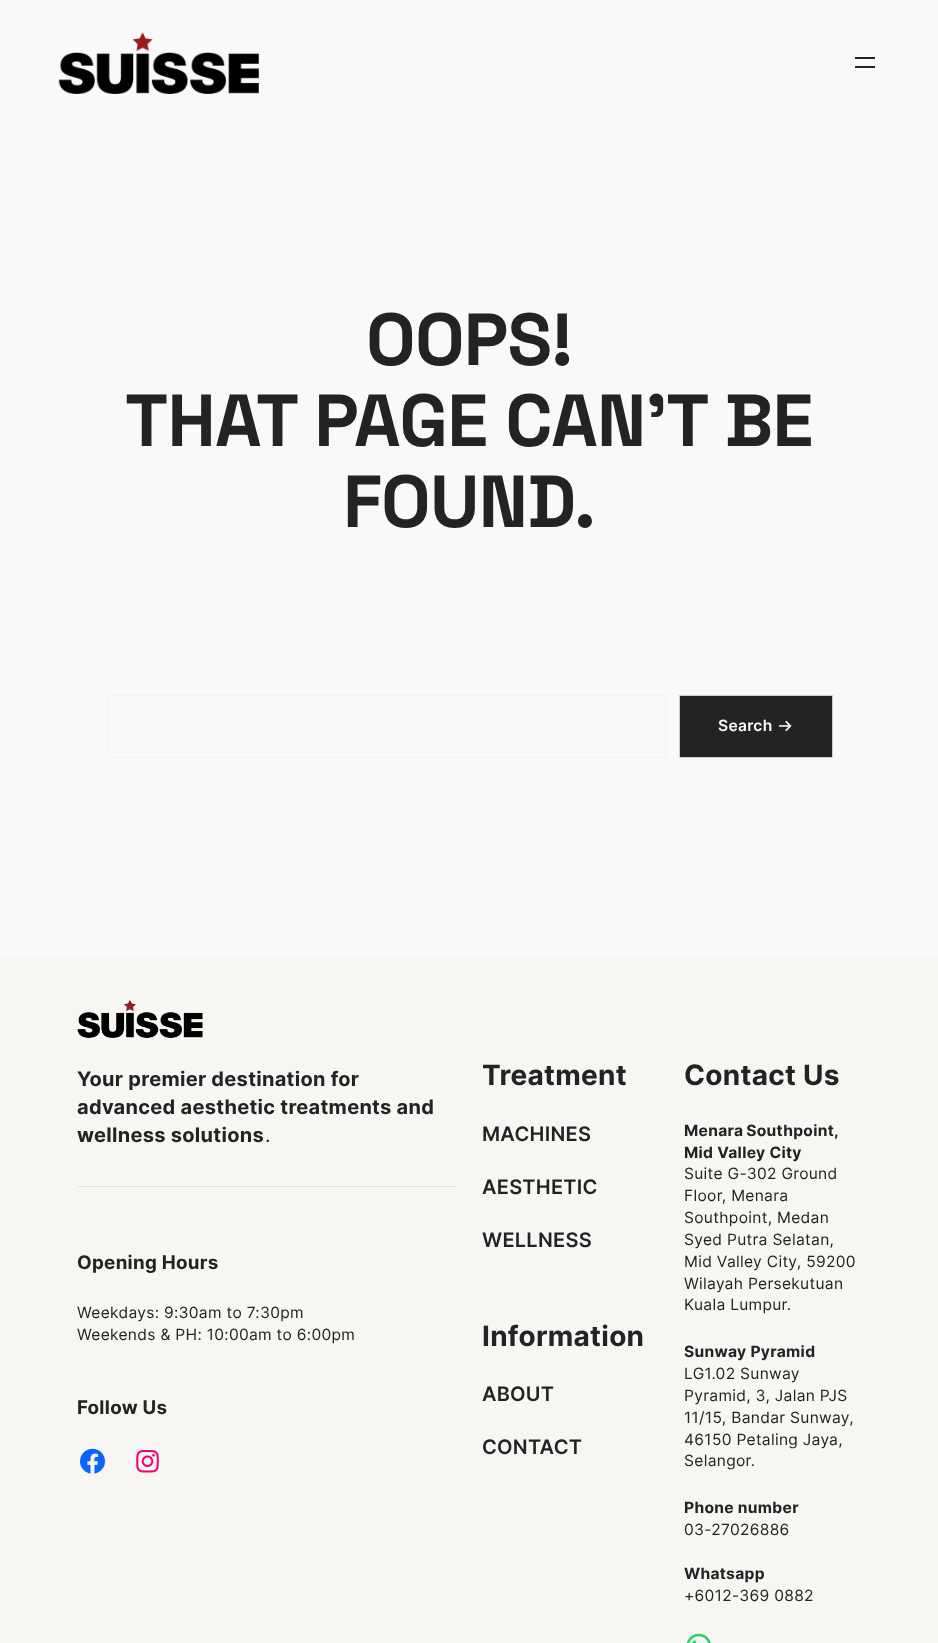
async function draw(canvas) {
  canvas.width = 938;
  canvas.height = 1643;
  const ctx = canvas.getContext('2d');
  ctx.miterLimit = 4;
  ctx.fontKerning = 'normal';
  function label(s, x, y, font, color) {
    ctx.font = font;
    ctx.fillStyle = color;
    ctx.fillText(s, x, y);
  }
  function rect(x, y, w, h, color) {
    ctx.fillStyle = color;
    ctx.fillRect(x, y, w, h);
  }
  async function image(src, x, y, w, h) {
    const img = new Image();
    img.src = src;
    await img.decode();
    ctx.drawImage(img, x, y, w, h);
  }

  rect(0, 0, 938, 1643, '#f9f9f9');
  await image('assets/img1.png', 58, 32, 201, 62);
  rect(855, 57, 20, 2, '#232326');
  rect(855, 66, 20, 2, '#232326');
  ctx.letterSpacing = '-0.75px';
  label('OOPS!', 366, 365, 'bold 73.5px Space Grotesk', '#232326');
  label('THAT PAGE CAN’T BE', 125, 446, 'bold 73.5px Space Grotesk', '#232326');
  label('FOUND.', 343, 527, 'bold 73.5px Space Grotesk', '#232326');
  ctx.strokeStyle = '#f4f4ec';
  ctx.strokeRect(108.5, 695.5, 557, 62);
  ctx.beginPath();
  ctx.rect(679.5, 695.5, 153, 62);
  ctx.fill();
  ctx.strokeStyle = '#ccc';
  ctx.stroke();
  ctx.letterSpacing = '0.3px';
  label('Search', 718, 731, '600 15.6px Inter', '#f9f9f9');
  await image('assets/img2.png', 779, 720, 13, 12);
  rect(0, 958, 938, 685, '#f7f6f2');
  await image('assets/img3.png', 77, 1000, 126, 38);
  label('Your premier destination for', 77, 1086, 'bold 20px Inter', '#232326');
  label('advanced aesthetic treatments and', 77, 1114, 'bold 20px Inter', '#232326');
  label('wellness solutions', 77, 1142, 'bold 20px Inter', '#232326');
  label('.', 265, 1142, '20px Inter', '#232326');
  rect(78, 1186, 378, 1, '#e2e1de');
  label('Opening Hours', 77, 1269, 'bold 18.75px Inter', '#232326');
  label('Weekdays: 9:30am to 7:30pm', 77, 1318, '15.6px Inter', '#232326');
  label('Weekends & PH: 10:00am to 6:00pm', 77, 1340, '15.6px Inter', '#232326');
  label('Follow Us', 77, 1414, 'bold 18.75px Inter', '#232326');
  await image('assets/img4.png', 80, 1448, 25, 26);
  await image('assets/img5.png', 136, 1450, 23, 23);
  label('Treatment', 482, 1085, 'bold 28px Inter', '#232326');
  ctx.letterSpacing = '0.25px';
  label('MACHINES', 482, 1141, '600 20px Inter', '#232326');
  label('AESTHETIC', 482, 1194, '600 20px Inter', '#232326');
  label('WELLNESS', 482, 1247, '600 20px Inter', '#232326');
  ctx.letterSpacing = '0.3px';
  label('Information', 482, 1346, 'bold 28px Inter', '#232326');
  ctx.letterSpacing = '0.25px';
  label('ABOUT', 482, 1401, '600 20px Inter', '#232326');
  label('CONTACT', 482, 1454, '600 20px Inter', '#232326');
  ctx.letterSpacing = '0.3px';
  label('Contact Us', 684, 1085, 'bold 28px Inter', '#232326');
  ctx.wordSpacing = '-1px';
  label('Menara Southpoint,', 684, 1136, 'bold 15.6px Inter', '#232326');
  ctx.wordSpacing = '0px';
  label('Mid Valley City', 684, 1158, 'bold 15.6px Inter', '#232326');
  label('Suite G-302 Ground', 684, 1179, '15.6px Inter', '#232326');
  label('Floor, Menara', 684, 1201, '15.6px Inter', '#232326');
  label('Southpoint, Medan', 684, 1223, '15.6px Inter', '#232326');
  label('Syed Putra Selatan,', 684, 1245, '15.6px Inter', '#232326');
  label('Mid Valley City, 59200', 684, 1267, '15.6px Inter', '#232326');
  label('Wilayah Persekutuan', 684, 1289, '15.6px Inter', '#232326');
  label('Kuala Lumpur.', 684, 1310, '15.6px Inter', '#232326');
  label('Sunway Pyramid', 684, 1357, 'bold 15.6px Inter', '#232326');
  label('LG1.02 Sunway', 684, 1379, '15.6px Inter', '#232326');
  label('Pyramid, 3, Jalan PJS', 684, 1401, '15.6px Inter', '#232326');
  label('11/15, Bandar Sunway,', 684, 1423, '15.6px Inter', '#232326');
  label('46150 Petaling Jaya,', 684, 1445, '15.6px Inter', '#232326');
  label('Selangor.', 684, 1466, '15.6px Inter', '#232326');
  label('Phone number', 684, 1513, 'bold 15.6px Inter', '#232326');
  label('03-27026886', 684, 1535, '15.6px Inter', '#232326');
  label('Whatsapp', 684, 1579, 'bold 15.6px Inter', '#232326');
  label('+6012-369 0882', 684, 1601, '15.6px Inter', '#232326');
  await image('assets/img6.png', 686, 1633, 25, 10);
}

draw(document.querySelector('canvas'));
